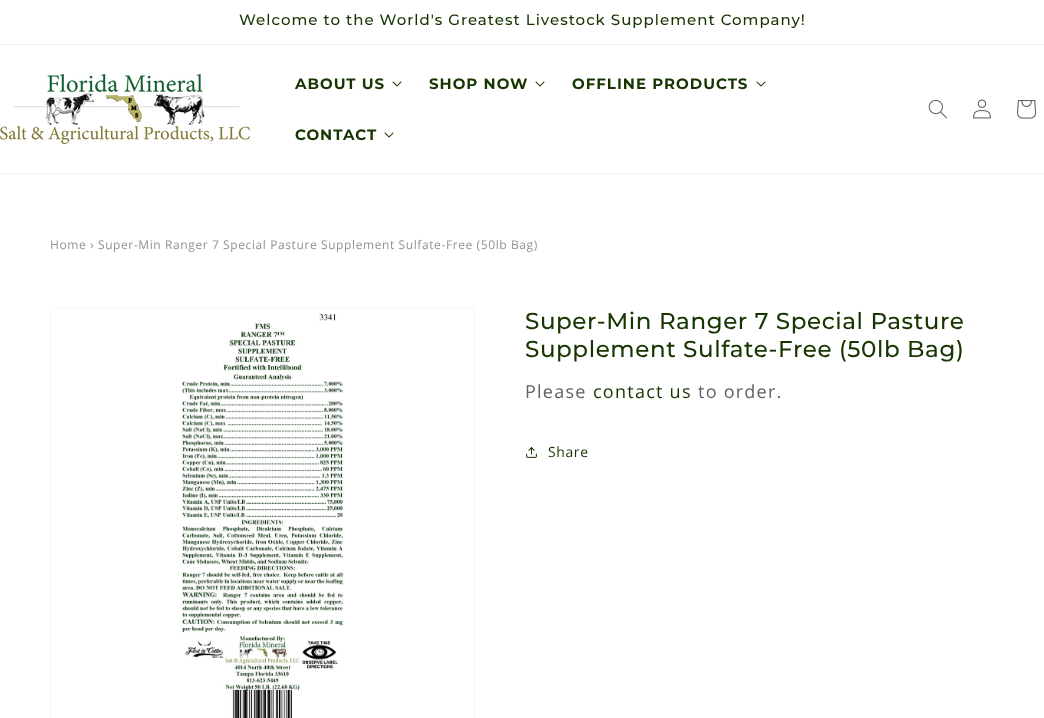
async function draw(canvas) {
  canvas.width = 1044;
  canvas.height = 718;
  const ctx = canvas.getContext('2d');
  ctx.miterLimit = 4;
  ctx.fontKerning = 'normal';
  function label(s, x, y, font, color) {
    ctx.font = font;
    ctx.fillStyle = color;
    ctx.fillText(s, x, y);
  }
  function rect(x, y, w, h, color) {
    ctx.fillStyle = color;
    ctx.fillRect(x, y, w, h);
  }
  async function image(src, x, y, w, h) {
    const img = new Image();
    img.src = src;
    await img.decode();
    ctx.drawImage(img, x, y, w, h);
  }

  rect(0, 0, 1044, 718, '#fff');
  rect(0, 44, 1044, 1, '#f2f2f2');
  ctx.letterSpacing = '1px';
  label('Welcome to the World\'s Greatest Livestock Supplement Company!', 239, 25, '500 15px Montserrat', '#173500');
  rect(0, 173, 1044, 1, '#f2f2f2');
  await image('assets/img1.png', 0, 74, 250, 70);
  label('ABOUT US', 295, 89, 'bold 15px Montserrat', '#173500');
  await image('assets/img2.png', 392, 81, 10, 6);
  label('SHOP NOW', 429, 89, 'bold 15px Montserrat', '#173500');
  await image('assets/img2.png', 535, 81, 10, 6);
  label('OFFLINE PRODUCTS', 572, 89, 'bold 15px Montserrat', '#173500');
  await image('assets/img2.png', 756, 81, 10, 6);
  label('CONTACT', 295, 140, 'bold 15px Montserrat', '#173500');
  await image('assets/img2.png', 384, 132, 10, 6);
  await image('assets/img3.png', 928, 99, 19, 20);
  await image('assets/img4.png', 973, 99, 18, 20);
  await image('assets/img5.png', 1017, 100, 20, 19);
  ctx.letterSpacing = '0.6px';
  label('Home › Super-Min Ranger 7 Special Pasture Supplement Sulfate-Free (50lb Bag)', 50, 249, '12px Open Sans', '#929292');
  ctx.strokeStyle = '#f7f7f7';
  ctx.strokeRect(50.5, 307.5, 424, 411);
  await image('assets/img6.png', 181, 314, 163, 404);
  label('Super-Min Ranger 7 Special Pasture', 525, 329, '500 23px Montserrat', '#173500');
  label('Supplement Sulfate-Free (50lb Bag)', 525, 357, '500 23px Montserrat', '#173500');
  ctx.letterSpacing = '1.25px';
  label('Please', 525, 398, '18px Open Sans', '#626262');
  label('contact us', 593, 398, '18px Open Sans', '#173500');
  label('to order.', 698, 398, '18px Open Sans', '#626262');
  await image('assets/img7.png', 526, 447, 11, 11);
  ctx.letterSpacing = '0.6px';
  label('Share', 548, 457, '14px Open Sans', '#173500');
}

draw(document.querySelector('canvas'));
